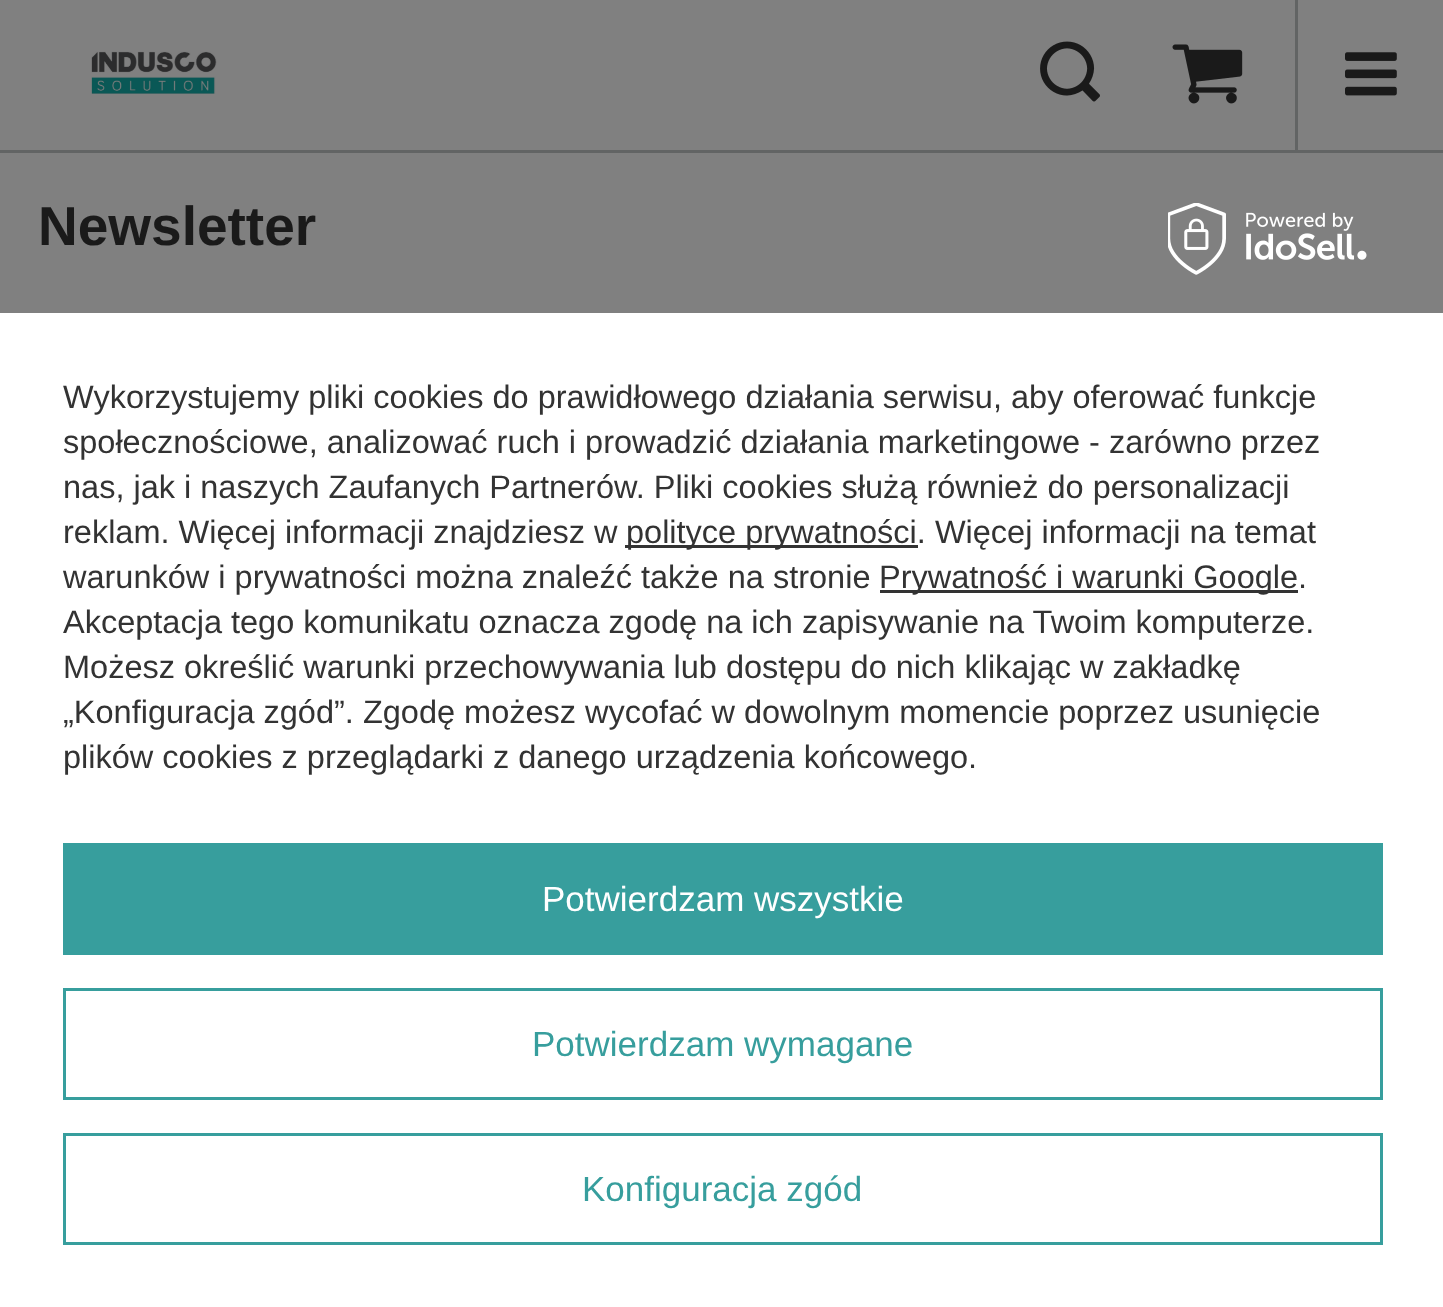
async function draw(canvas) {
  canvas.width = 1443;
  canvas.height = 1307;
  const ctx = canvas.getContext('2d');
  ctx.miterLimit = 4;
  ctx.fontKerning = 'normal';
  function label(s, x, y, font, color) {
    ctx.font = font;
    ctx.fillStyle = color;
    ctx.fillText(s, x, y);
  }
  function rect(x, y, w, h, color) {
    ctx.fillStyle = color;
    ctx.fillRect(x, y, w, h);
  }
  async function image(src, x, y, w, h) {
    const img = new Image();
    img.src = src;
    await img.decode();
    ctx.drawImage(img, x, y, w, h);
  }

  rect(0, 0, 1443, 1307, '#808080');
  rect(0, 150, 1443, 3, '#626464');
  await image('assets/img1.png', 91, 51, 126, 43);
  await image('assets/img2.png', 1040, 41, 60, 61);
  await image('assets/img3.png', 1172, 44, 71, 60);
  rect(1295, 0, 3, 150, '#626464');
  await image('assets/img4.png', 1345, 52, 52, 44);
  label('Newsletter', 38, 245, 'bold 55px Liberation Sans', '#1a1a1a');
  rect(0, 313, 1443, 994, '#fff');
  await image('assets/img5.png', 1168, 203, 199, 72);
  label('Wykorzystujemy pliki cookies do prawidłowego działania serwisu, aby oferować funkcje', 63, 408, '32.5px Liberation Sans', '#333');
  label('społecznościowe, analizować ruch i prowadzić działania marketingowe - zarówno przez', 63, 453, '32.5px Liberation Sans', '#333');
  label('nas, jak i naszych Zaufanych Partnerów. Pliki cookies służą również do personalizacji', 63, 498, '32.5px Liberation Sans', '#333');
  label('reklam. Więcej informacji znajdziesz w', 63, 543, '32.5px Liberation Sans', '#333');
  rect(625, 545, 293, 3, '#333');
  label('polityce prywatności. Więcej informacji na temat', 626, 543, '32.5px Liberation Sans', '#333');
  label('warunków i prywatności można znaleźć także na stronie', 63, 588, '32.5px Liberation Sans', '#333');
  rect(880, 590, 418, 3, '#333');
  label('Prywatność i warunki Google.', 879, 588, '32.5px Liberation Sans', '#333');
  label('Akceptacja tego komunikatu oznacza zgodę na ich zapisywanie na Twoim komputerze.', 63, 633, '32.5px Liberation Sans', '#333');
  label('Możesz określić warunki przechowywania lub dostępu do nich klikając w zakładkę', 63, 678, '32.5px Liberation Sans', '#333');
  label('„Konfiguracja zgód”. Zgodę możesz wycofać w dowolnym momencie poprzez usunięcie', 63, 723, '32.5px Liberation Sans', '#333');
  label('plików cookies z przeglądarki z danego urządzenia końcowego.', 63, 768, '32.5px Liberation Sans', '#333');
  rect(63, 843, 1320, 112, '#379e9d');
  label('Potwierdzam wszystkie', 542, 911, '35px Liberation Sans', '#fff');
  ctx.strokeStyle = '#379e9d';
  ctx.lineWidth = 3;
  ctx.strokeRect(64.5, 989.5, 1317, 109);
  label('Potwierdzam wymagane', 532, 1056, '35px Liberation Sans', '#379e9d');
  ctx.strokeRect(64.5, 1134.5, 1317, 109);
  label('Konfiguracja zgód', 582, 1201, '35px Liberation Sans', '#379e9d');
}

draw(document.querySelector('canvas'));
